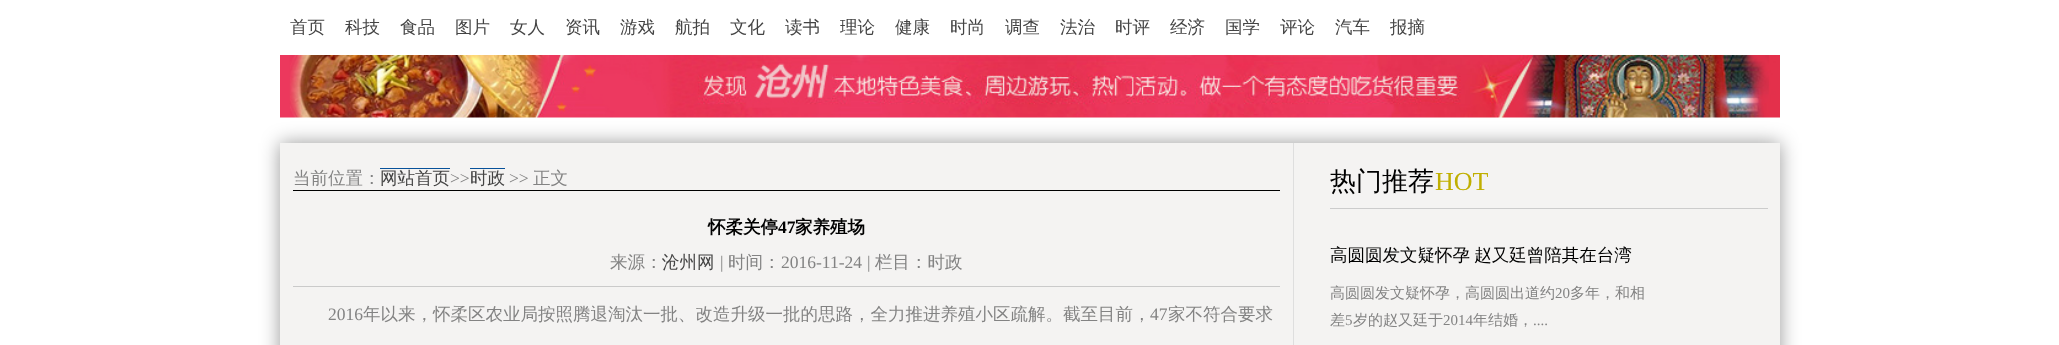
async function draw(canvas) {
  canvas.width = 2059;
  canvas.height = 345;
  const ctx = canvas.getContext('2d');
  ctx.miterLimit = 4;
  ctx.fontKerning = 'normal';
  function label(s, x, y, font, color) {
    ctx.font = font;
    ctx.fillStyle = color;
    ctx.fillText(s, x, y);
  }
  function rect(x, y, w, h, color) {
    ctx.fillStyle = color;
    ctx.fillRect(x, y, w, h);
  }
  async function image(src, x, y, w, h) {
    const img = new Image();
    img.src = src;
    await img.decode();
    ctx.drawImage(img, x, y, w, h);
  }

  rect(0, 0, 2059, 345, '#fff');
  label('首页', 290, 33, '500 17.5px WenQuanYi Zen Hei', '#444');
  label('科技', 345, 33, '500 17.5px WenQuanYi Zen Hei', '#444');
  label('食品', 400, 33, '500 17.5px WenQuanYi Zen Hei', '#444');
  label('图片', 455, 33, '500 17.5px WenQuanYi Zen Hei', '#444');
  label('女人', 510, 33, '500 17.5px WenQuanYi Zen Hei', '#444');
  label('资讯', 565, 33, '500 17.5px WenQuanYi Zen Hei', '#444');
  label('游戏', 620, 33, '500 17.5px WenQuanYi Zen Hei', '#444');
  label('航拍', 675, 33, '500 17.5px WenQuanYi Zen Hei', '#444');
  label('文化', 730, 33, '500 17.5px WenQuanYi Zen Hei', '#444');
  label('读书', 785, 33, '500 17.5px WenQuanYi Zen Hei', '#444');
  label('理论', 840, 33, '500 17.5px WenQuanYi Zen Hei', '#444');
  label('健康', 895, 33, '500 17.5px WenQuanYi Zen Hei', '#444');
  label('时尚', 950, 33, '500 17.5px WenQuanYi Zen Hei', '#444');
  label('调查', 1005, 33, '500 17.5px WenQuanYi Zen Hei', '#444');
  label('法治', 1060, 33, '500 17.5px WenQuanYi Zen Hei', '#444');
  label('时评', 1115, 33, '500 17.5px WenQuanYi Zen Hei', '#444');
  label('经济', 1170, 33, '500 17.5px WenQuanYi Zen Hei', '#444');
  label('国学', 1225, 33, '500 17.5px WenQuanYi Zen Hei', '#444');
  label('评论', 1280, 33, '500 17.5px WenQuanYi Zen Hei', '#444');
  label('汽车', 1335, 33, '500 17.5px WenQuanYi Zen Hei', '#444');
  label('报摘', 1390, 33, '500 17.5px WenQuanYi Zen Hei', '#444');
  await image('assets/img1.png', 280, 55, 1500, 63);
  ctx.fillStyle = '#00000066';
  ctx.filter = 'blur(9.5px)';
  ctx.beginPath();
  ctx.rect(280, 143, 1500, 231);
  ctx.fill();
  ctx.filter = 'none';
  rect(280, 143, 1500, 202, '#f4f3f2');
  rect(1293, 143, 1, 202, '#dedede');
  rect(293, 190, 987, 1, '#000');
  label('当前位置：', 293, 184, '500 17.5px WenQuanYi Zen Hei', '#838383');
  label('网站首页', 380, 184, '500 17.5px WenQuanYi Zen Hei', '#444');
  rect(380, 168, 70, 1, '#07519a');
  label('>>', 450, 184, '17.5px Liberation Serif', '#838383');
  label('时政', 470, 184, '500 17.5px WenQuanYi Zen Hei', '#444');
  rect(470, 168, 35, 1, '#07519a');
  label('>>', 509, 184, '17.5px Liberation Serif', '#838383');
  label('正文', 533, 184, '500 17.5px WenQuanYi Zen Hei', '#838383');
  label('怀柔关停', 708, 233, 'bold 17.5px WenQuanYi Zen Hei', '#000');
  label('47', 778, 233, 'bold 17.5px Liberation Serif', '#000');
  label('家养殖场', 795, 233, 'bold 17.5px WenQuanYi Zen Hei', '#000');
  rect(293, 286, 987, 1, '#cacaca');
  label('来源：', 610, 268, '500 17.5px WenQuanYi Zen Hei', '#838383');
  label('沧州网', 662, 268, '500 17.5px WenQuanYi Zen Hei', '#444');
  label('|', 720, 268, '17.5px Liberation Serif', '#838383');
  label('时间：', 728, 268, '500 17.5px WenQuanYi Zen Hei', '#838383');
  label('2016-11-24', 781, 268, '17.5px Liberation Serif', '#838383');
  label('|', 867, 268, '17.5px Liberation Serif', '#838383');
  label('栏目：时政', 875, 268, '500 17.5px WenQuanYi Zen Hei', '#838383');
  label('2016', 328, 320, '17.5px Liberation Serif', '#838383');
  label('年以来，怀柔区农业局按照腾退淘汰一批、改造升级一批的思路，全力推进养殖小区疏解。截至目前，', 363, 320, '500 17.5px WenQuanYi Zen Hei', '#838383');
  label('47', 1150, 320, '17.5px Liberation Serif', '#838383');
  label('家不符合要求', 1168, 320, '500 17.5px WenQuanYi Zen Hei', '#838383');
  rect(1330, 208, 438, 1, '#ccc');
  label('热门推荐', 1330, 190, '500 26px WenQuanYi Zen Hei', '#000');
  label('HOT', 1435, 190, '26px Liberation Serif', '#c0af01');
  ctx.wordSpacing = '-1px';
  label('高圆圆发文疑怀孕 赵又廷曾陪其在台湾', 1330, 261, '500 17.5px WenQuanYi Zen Hei', '#000');
  ctx.wordSpacing = '0px';
  label('高圆圆发文疑怀孕，高圆圆出道约', 1330, 298, '500 15px WenQuanYi Zen Hei', '#838383');
  label('20', 1555, 298, '15px Liberation Serif', '#838383');
  label('多年，和相', 1570, 298, '500 15px WenQuanYi Zen Hei', '#838383');
  label('差', 1330, 325, '500 15px WenQuanYi Zen Hei', '#838383');
  label('5', 1345, 325, '15px Liberation Serif', '#838383');
  label('岁的赵又廷于', 1353, 325, '500 15px WenQuanYi Zen Hei', '#838383');
  label('2014', 1443, 325, '15px Liberation Serif', '#838383');
  label('年结婚，', 1473, 325, '500 15px WenQuanYi Zen Hei', '#838383');
  label('....', 1533, 325, '15px Liberation Serif', '#838383');
}

draw(document.querySelector('canvas'));
